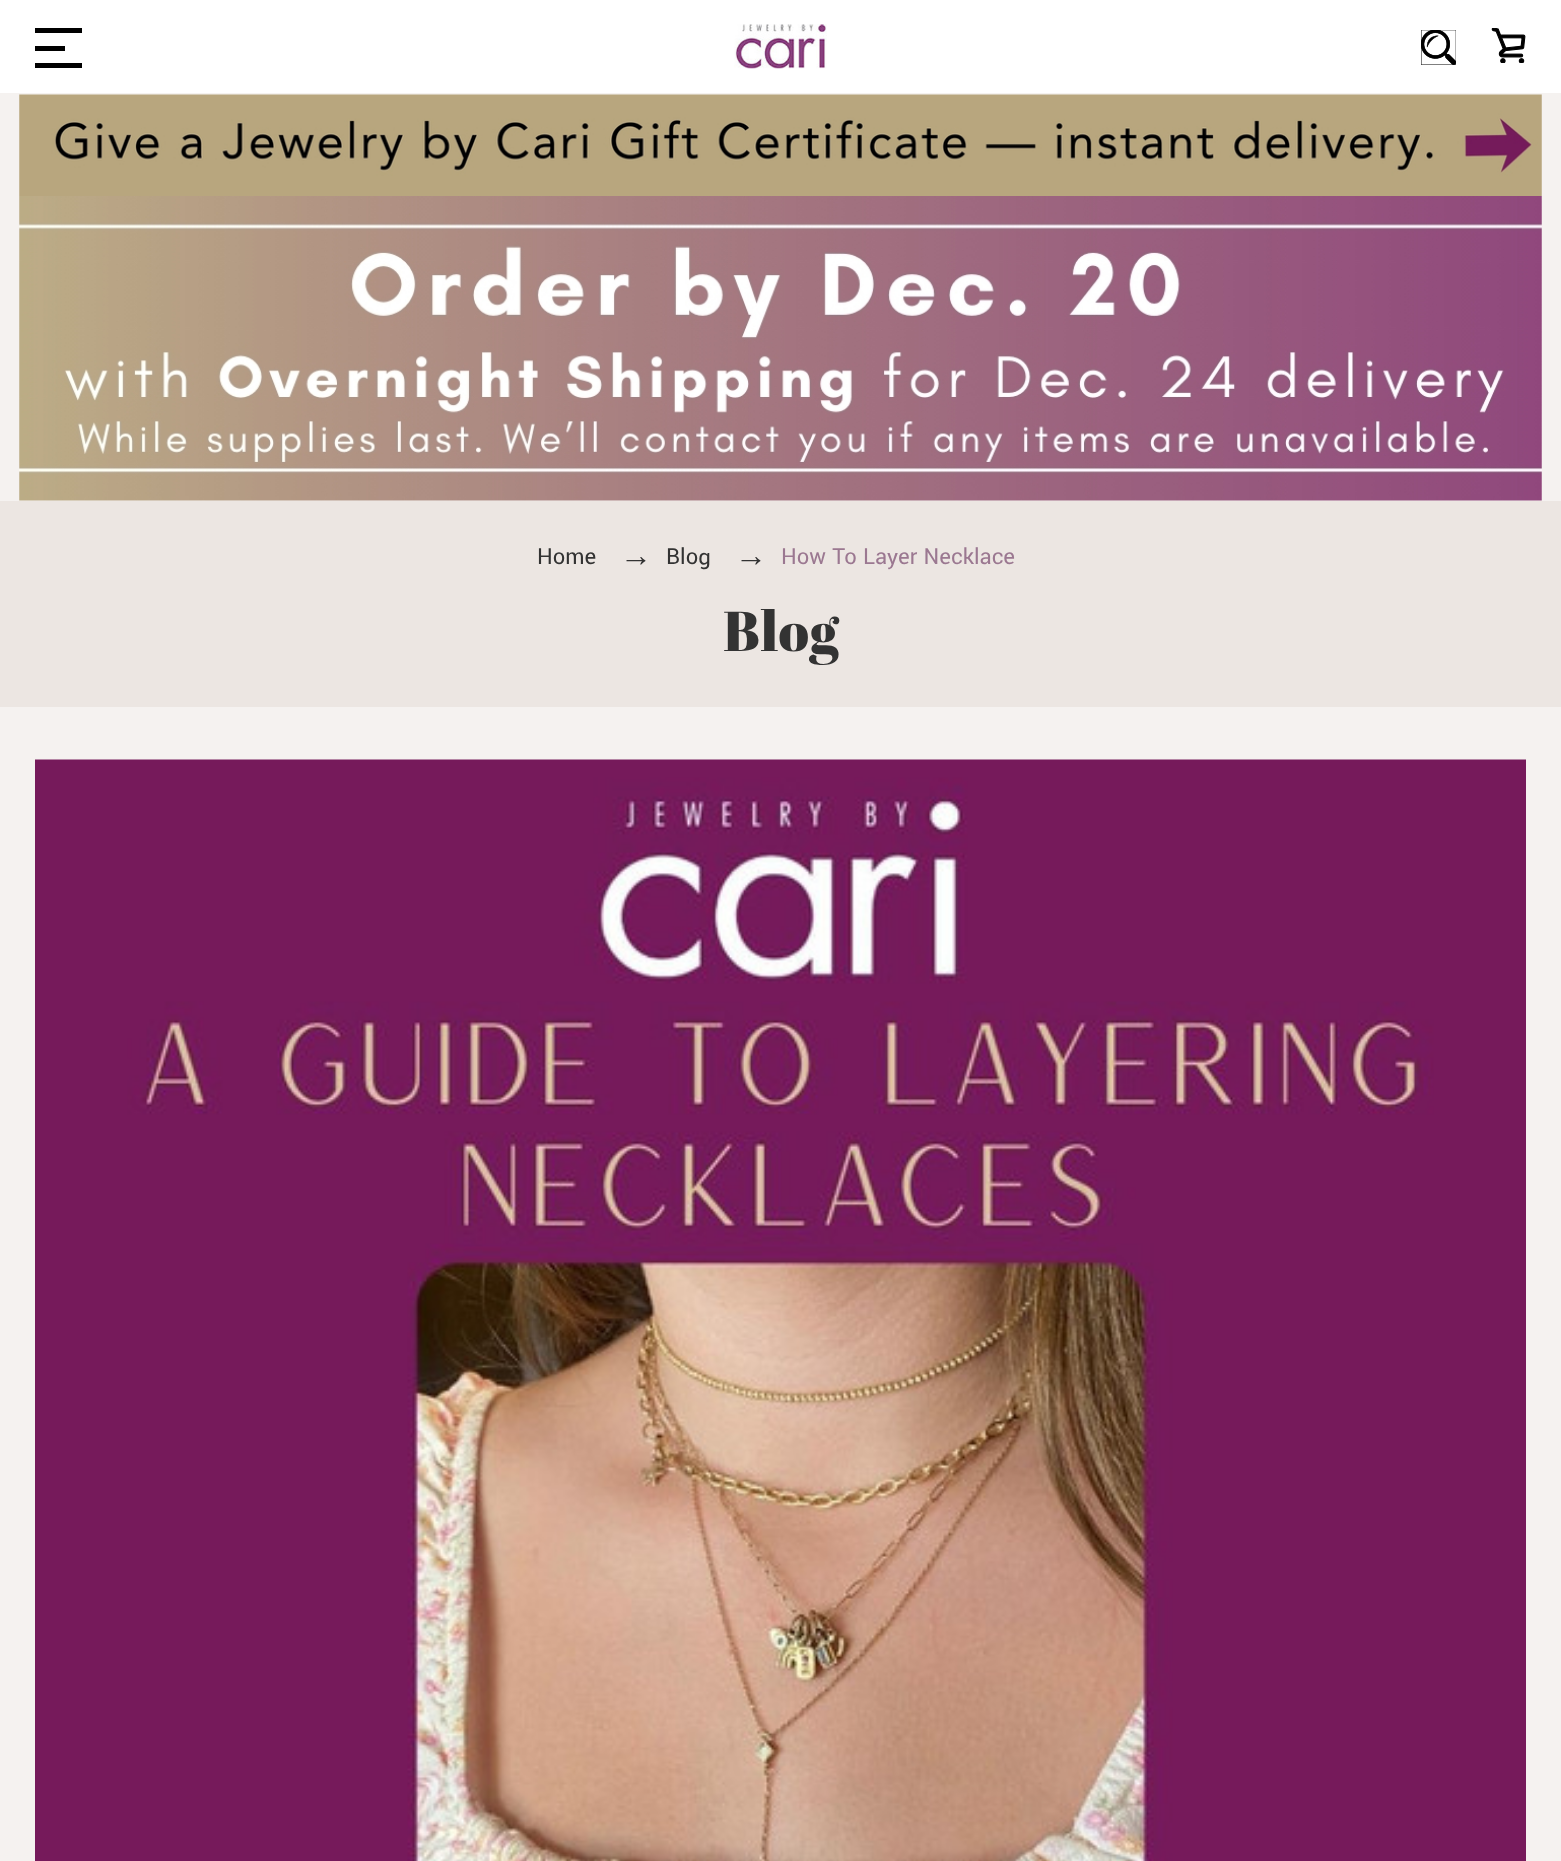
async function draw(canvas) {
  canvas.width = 1561;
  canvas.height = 1861;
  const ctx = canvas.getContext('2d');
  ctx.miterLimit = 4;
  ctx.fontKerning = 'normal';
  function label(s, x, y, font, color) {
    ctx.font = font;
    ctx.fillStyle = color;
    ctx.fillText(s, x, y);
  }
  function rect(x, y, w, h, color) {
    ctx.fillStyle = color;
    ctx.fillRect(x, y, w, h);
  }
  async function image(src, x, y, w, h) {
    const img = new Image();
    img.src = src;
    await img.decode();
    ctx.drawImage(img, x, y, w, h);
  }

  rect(0, 0, 1561, 1861, '#f5f2f0');
  rect(0, 0, 1561, 93, '#fff');
  rect(35, 46, 30, 5, '#000');
  rect(35, 28, 47, 5, '#000');
  rect(35, 63, 47, 5, '#000');
  await image('assets/img1.png', 734, 24, 93, 45);
  await image('assets/img2.png', 1421, 30, 35, 35);
  await image('assets/img3.png', 1491, 28, 35, 35);
  await image('assets/img4.png', 19, 94, 1523, 102);
  await image('assets/img5.png', 19, 196, 1523, 305);
  rect(0, 501, 1561, 206, '#ece6e2');
  label('Home', 537, 564, '24.5px Yantramanav', '#333');
  label('→', 620, 566, '32px Liberation Sans', '#333');
  label('Blog', 666, 564, '24.5px Yantramanav', '#333');
  label('→', 735, 566, '32px Liberation Sans', '#333');
  label('How To Layer Necklace', 781, 564, '24.5px Yantramanav', '#9b7891');
  ctx.letterSpacing = '0.5px';
  label('Blog', 723, 651, '56px Abril Fatface', '#333');
  await image('assets/img6.png', 35, 759, 1491, 1102);
}

draw(document.querySelector('canvas'));
